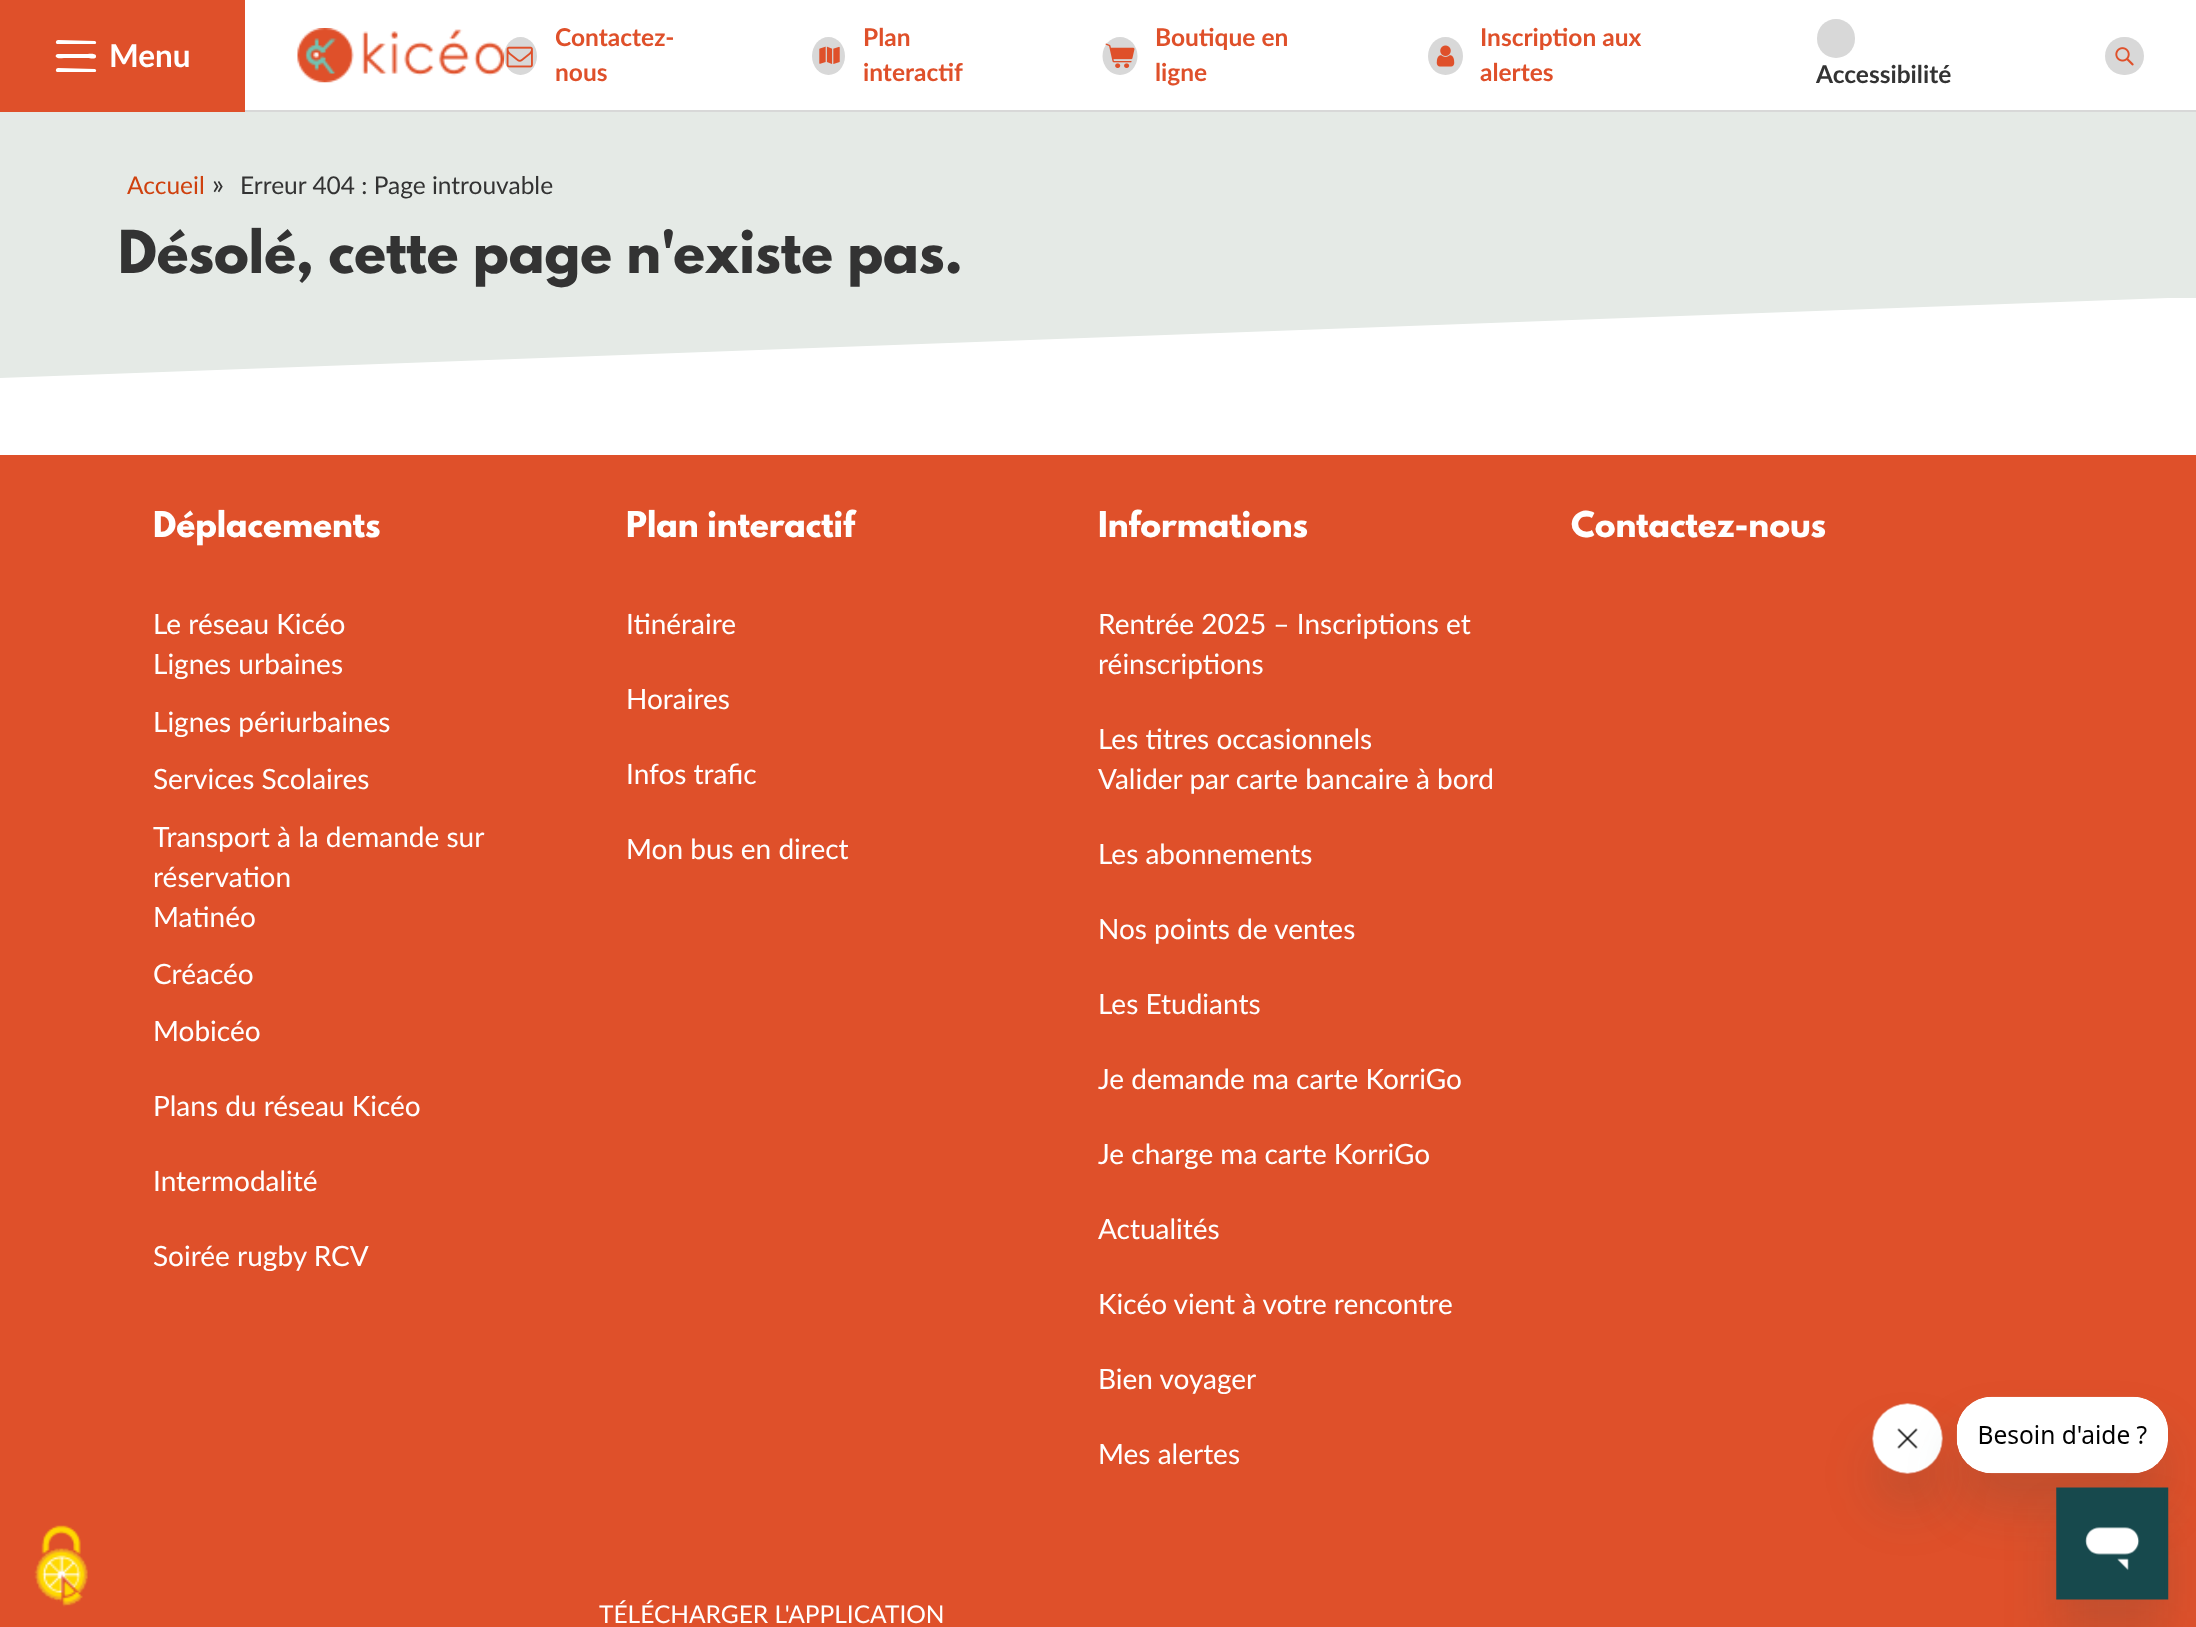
async function draw(canvas) {
  canvas.width = 2196;
  canvas.height = 1627;
  const ctx = canvas.getContext('2d');
  ctx.miterLimit = 4;
  ctx.fontKerning = 'normal';
  function label(s, x, y, font, color) {
    ctx.font = font;
    ctx.fillStyle = color;
    ctx.fillText(s, x, y);
  }
  function rect(x, y, w, h, color) {
    ctx.fillStyle = color;
    ctx.fillRect(x, y, w, h);
  }
  function roundedRect(x, y, w, h, r, color) {
    ctx.fillStyle = color;
    ctx.beginPath();
    ctx.roundRect(x, y, w, h, r);
    ctx.fill();
  }
  async function image(src, x, y, w, h) {
    const img = new Image();
    img.src = src;
    await img.decode();
    ctx.drawImage(img, x, y, w, h);
  }
  let path;

  rect(0, 0, 2196, 1627, '#fff');
  rect(0, 455, 2196, 1172, '#df502a');
  await image('assets/img1.png', 34, 1525, 54, 82);
  rect(245, 110, 1951, 2, '#d8d8d8');
  rect(0, 0, 245, 112, '#df502a');
  ctx.fillStyle = '#fff';
  path = new Path2D('M58 40L95 41C97 42 96 44 95 44H57C55 43 56 40 58 40ZM58 54H88C88 54 96 53 96 56C97 60 89 58 88 58H64C61 58 58 59 56 57C55 56 56 54 58 54ZM58 68L95 69C97 70 96 72 95 72H57C55 71 56 68 58 68Z');
  ctx.fill(path);
  label('Menu', 109, 67, 'bold 31.5px Lato', '#fff');
  await image('assets/img2.png', 297, 28, 207, 55);
  ctx.fillStyle = '#d8d8d8';
  ctx.beginPath();
  ctx.ellipse(520.5, 56, 16.5, 19, 0, 0, 2 * Math.PI);
  ctx.fill();
  await image('assets/img3.png', 506, 46, 27, 22);
  label('Contactez-', 555, 46, 'bold 24.5px Lato', '#df502a');
  label('nous', 555, 81, 'bold 24.5px Lato', '#df502a');
  ctx.fillStyle = '#d8d8d8';
  ctx.beginPath();
  ctx.ellipse(828.5, 56, 16.5, 19, 0, 0, 2 * Math.PI);
  ctx.fill();
  await image('assets/img4.png', 819, 46, 21, 18);
  label('Plan', 863, 46, 'bold 24.5px Lato', '#df502a');
  label('interactif', 863, 81, 'bold 24.5px Lato', '#df502a');
  ctx.fillStyle = '#d8d8d8';
  ctx.beginPath();
  ctx.ellipse(1120, 56, 17.5, 19, 0, 0, 2 * Math.PI);
  ctx.fill();
  await image('assets/img5.png', 1105, 43, 30, 25);
  label('Boutique en', 1155, 46, 'bold 24.5px Lato', '#df502a');
  label('ligne', 1155, 81, 'bold 24.5px Lato', '#df502a');
  ctx.fillStyle = '#d8d8d8';
  ctx.beginPath();
  ctx.ellipse(1445.5, 56, 17.5, 19, 0, 0, 2 * Math.PI);
  ctx.fill();
  await image('assets/img6.png', 1436, 45, 19, 22);
  label('Inscription aux', 1480, 46, 'bold 24.5px Lato', '#df502a');
  label('alertes', 1480, 81, 'bold 24.5px Lato', '#df502a');
  roundedRect(1817, 19, 38, 39, 19, '#d8d8d8');
  label('Accessibilité', 1816, 83, 'bold 24.5px Lato', '#333');
  roundedRect(2105, 37, 39, 38, 19, '#d8d8d8');
  await image('assets/img7.png', 2115, 47, 19, 19);
  rect(0, 112, 2196, 186, '#e5eae6');
  label('Accueil', 127, 194, '24.5px Lato', '#cf410e');
  label('»', 212, 194, '28px Lato', '#333');
  label('Erreur 404 : Page introuvable', 240, 194, '24.5px Lato', '#333');
  label('Désolé, cette page n\'existe pas.', 118, 273, 'bold 52.5px League Spartan', '#333');
  ctx.fillStyle = '#e5eae6';
  path = new Path2D('M0 298V378L2168 298Z');
  ctx.fill(path);
  label('Déplacements', 153, 537, 'bold 31.5px League Spartan', '#fff');
  label('Le réseau Kicéo', 153, 634, '28px Lato', '#fff');
  label('Lignes urbaines', 153, 674, '28px Lato', '#fff');
  label('Lignes périurbaines', 153, 732, '28px Lato', '#fff');
  label('Services Scolaires', 153, 789, '28px Lato', '#fff');
  label('Transport à la demande sur', 153, 847, '28px Lato', '#fff');
  label('réservation', 153, 887, '28px Lato', '#fff');
  label('Matinéo', 153, 927, '28px Lato', '#fff');
  label('Créacéo', 153, 984, '28px Lato', '#fff');
  label('Mobicéo', 153, 1041, '28px Lato', '#fff');
  label('Plans du réseau Kicéo', 153, 1116, '28px Lato', '#fff');
  label('Intermodalité', 153, 1191, '28px Lato', '#fff');
  label('Soirée rugby RCV', 153, 1266, '28px Lato', '#fff');
  label('Plan interactif', 626, 537, 'bold 31.5px League Spartan', '#fff');
  label('Itinéraire', 626, 634, '28px Lato', '#fff');
  label('Horaires', 626, 709, '28px Lato', '#fff');
  label('Infos trafic', 626, 784, '28px Lato', '#fff');
  label('Mon bus en direct', 626, 859, '28px Lato', '#fff');
  label('Informations', 1098, 537, 'bold 31.5px League Spartan', '#fff');
  label('Rentrée 2025 – Inscriptions et', 1098, 634, '28px Lato', '#fff');
  label('réinscriptions', 1098, 674, '28px Lato', '#fff');
  label('Les titres occasionnels', 1098, 749, '28px Lato', '#fff');
  label('Valider par carte bancaire à bord', 1098, 789, '28px Lato', '#fff');
  label('Les abonnements', 1098, 864, '28px Lato', '#fff');
  label('Nos points de ventes', 1098, 939, '28px Lato', '#fff');
  label('Les Etudiants', 1098, 1014, '28px Lato', '#fff');
  label('Je demande ma carte KorriGo', 1098, 1089, '28px Lato', '#fff');
  label('Je charge ma carte KorriGo', 1098, 1164, '28px Lato', '#fff');
  label('Actualités', 1098, 1239, '28px Lato', '#fff');
  label('Kicéo vient à votre rencontre', 1098, 1314, '28px Lato', '#fff');
  label('Bien voyager', 1098, 1389, '28px Lato', '#fff');
  label('Mes alertes', 1098, 1464, '28px Lato', '#fff');
  label('Contactez-nous', 1571, 537, 'bold 31.5px League Spartan', '#fff');
  label('TÉLÉCHARGER L\'APPLICATION', 599, 1623, '24.5px Lato', '#fff');
  ctx.fillStyle = '#17494d26';
  ctx.filter = 'blur(26px)';
  ctx.beginPath();
  ctx.roundRect(1873, 1439, 70, 70, 35);
  ctx.fill();
  ctx.filter = 'none';
  await image('assets/img9.png', 1872, 1403, 71, 71);
  ctx.filter = 'blur(26px)';
  ctx.beginPath();
  ctx.roundRect(1957, 1432, 211, 77, 35);
  ctx.fill();
  ctx.filter = 'none';
  await image('assets/img8.png', 1956, 1396, 212, 78);
  ctx.filter = 'blur(26px)';
  ctx.beginPath();
  ctx.rect(2056, 1523, 112, 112);
  ctx.fill();
  ctx.filter = 'none';
  await image('assets/img10.png', 2056, 1487, 113, 113);
}

draw(document.querySelector('canvas'));
